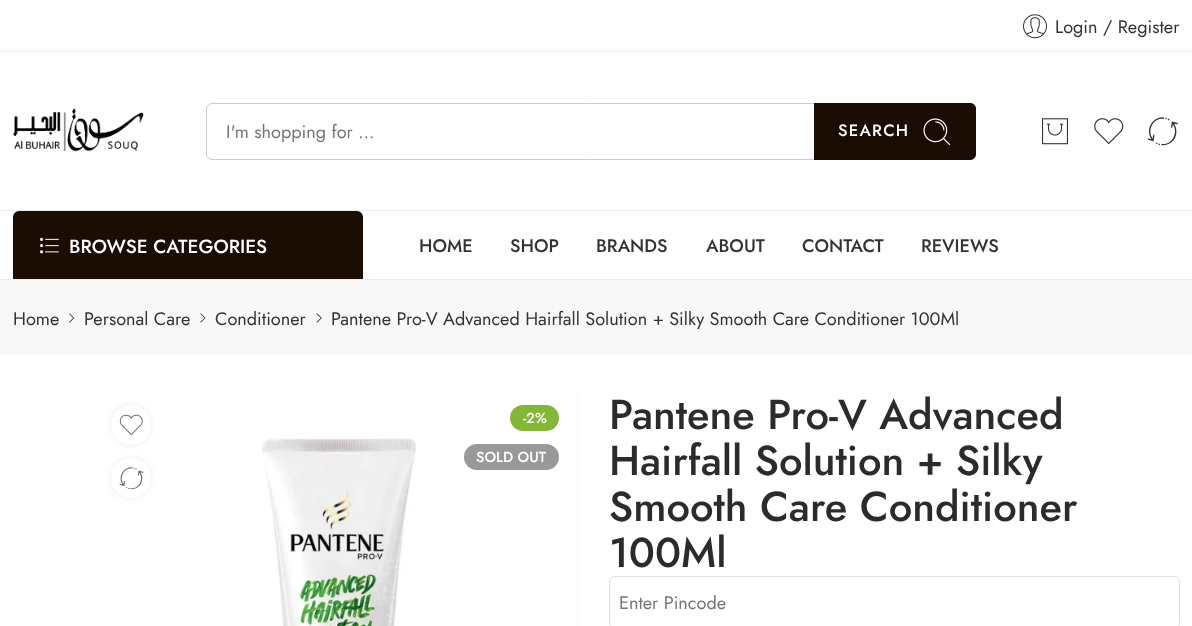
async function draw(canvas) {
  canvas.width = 1192;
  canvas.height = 626;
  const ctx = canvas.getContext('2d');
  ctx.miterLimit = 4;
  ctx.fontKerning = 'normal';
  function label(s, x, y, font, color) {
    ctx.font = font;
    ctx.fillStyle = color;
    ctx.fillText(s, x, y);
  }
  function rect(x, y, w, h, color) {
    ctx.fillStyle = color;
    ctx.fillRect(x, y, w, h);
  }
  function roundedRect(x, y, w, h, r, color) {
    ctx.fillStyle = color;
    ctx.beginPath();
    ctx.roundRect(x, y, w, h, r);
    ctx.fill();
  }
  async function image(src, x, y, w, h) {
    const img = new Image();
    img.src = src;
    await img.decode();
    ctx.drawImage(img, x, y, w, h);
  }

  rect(0, 0, 1192, 626, '#fff');
  rect(0, 51, 1192, 1, '#ececec');
  await image('assets/img1.png', 1023, 14, 24, 25);
  label('Login / Register', 1055, 33, '18.1px Jost', '#333');
  await image('assets/img2.png', 12, 108, 132, 44);
  ctx.beginPath();
  ctx.roundRect(206.5, 103.5, 768, 56, 5.5);
  ctx.strokeStyle = '#ccc';
  ctx.stroke();
  label('I\'m shopping for ...', 226, 138, '18.1px Jost', '#757575');
  ctx.save();
  ctx.beginPath();
  ctx.roundRect(814, 103, 162, 57, [0, 5, 5, 0]);
  ctx.clip();
  ctx.fillStyle = '#1b0d04';
  ctx.beginPath();
  ctx.roundRect(814, 103, 162, 57, [0, 6, 6, 0]);
  ctx.fill();
  ctx.restore();
  ctx.beginPath();
  ctx.roundRect(814.5, 103.5, 161, 56, [0, 5.5, 5.5, 0]);
  ctx.strokeStyle = '#1b0d04';
  ctx.stroke();
  ctx.letterSpacing = '1.25px';
  label('SEARCH', 838, 136, '500 16.5px Jost', '#fff');
  await image('assets/img3.png', 923, 118, 28, 28);
  await image('assets/img4.png', 1042, 118, 26, 27);
  await image('assets/img5.png', 1094, 118, 30, 27);
  await image('assets/img6.png', 1147, 117, 31, 29);
  rect(0, 210, 1192, 1, '#ececec');
  rect(0, 279, 1192, 1, '#ececec');
  ctx.fillStyle = '#1b0d04';
  ctx.beginPath();
  ctx.roundRect(13, 211, 350, 68, [6, 6, 0, 0]);
  ctx.fill();
  await image('assets/img7.png', 40, 237, 19, 17);
  ctx.letterSpacing = '0px';
  label('BROWSE CATEGORIES', 69, 253, '500 19px Jost', '#fff');
  label('HOME', 419, 252, '500 18.1px Jost', '#333');
  label('SHOP', 510, 252, '500 18.1px Jost', '#333');
  label('BRANDS', 596, 252, '500 18.1px Jost', '#333');
  label('ABOUT', 706, 252, '500 18.1px Jost', '#333');
  label('CONTACT', 802, 252, '500 18.1px Jost', '#333');
  label('REVIEWS', 921, 252, '500 18.1px Jost', '#333');
  rect(0, 280, 1192, 75, '#f8f8f8');
  label('Home', 13, 325, '18.1px Jost', '#333');
  await image('assets/img8.png', 69, 313, 6, 10);
  label('Personal Care', 84, 325, '18.1px Jost', '#333');
  await image('assets/img9.png', 200, 313, 6, 10);
  label('Conditioner', 215, 325, '18.1px Jost', '#333');
  await image('assets/img10.png', 316, 313, 6, 10);
  label('Pantene Pro-V Advanced Hairfall Solution + Silky Smooth Care Conditioner 100Ml', 331, 325, '18.1px Jost', '#333');
  rect(577, 393, 1, 233, '#f4f4f4');
  await image('assets/img11.png', 93, 393, 485, 233);
  ctx.fillStyle = '#00000014';
  ctx.filter = 'blur(3px)';
  ctx.beginPath();
  ctx.roundRect(111, 405, 40, 40, 20);
  ctx.fill();
  ctx.filter = 'none';
  ctx.fillStyle = '#fff';
  ctx.beginPath();
  ctx.arc(131, 425, 20, 0, 2 * Math.PI);
  ctx.fill();
  await image('assets/img12.png', 119, 414, 24, 22);
  ctx.fillStyle = '#00000014';
  ctx.filter = 'blur(3px)';
  ctx.beginPath();
  ctx.roundRect(111, 458, 40, 40, 20);
  ctx.fill();
  ctx.filter = 'none';
  ctx.fillStyle = '#fff';
  ctx.beginPath();
  ctx.arc(131, 478, 20, 0, 2 * Math.PI);
  ctx.fill();
  await image('assets/img13.png', 119, 467, 25, 23);
  roundedRect(510, 405, 49, 26, 13, '#83b738');
  label('-2%', 523, 423, '500 14.5px Jost', '#fff');
  roundedRect(464, 444, 95, 26, 13, '#999');
  label('SOLD OUT', 476, 462, '500 14.5px Jost', '#fff');
  label('Pantene Pro-V Advanced', 609, 429, '500 41.75px Jost', '#2d2a2a');
  label('Hairfall Solution + Silky', 609, 475, '500 41.75px Jost', '#2d2a2a');
  label('Smooth Care Conditioner', 609, 521, '500 41.75px Jost', '#2d2a2a');
  label('100Ml', 609, 567, '500 41.75px Jost', '#2d2a2a');
  ctx.beginPath();
  ctx.roundRect(609.5, 576.5, 570, 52, 5.5);
  ctx.strokeStyle = '#dedede';
  ctx.stroke();
  label('Enter Pincode', 619, 609, '18.1px Jost', '#757575');
}

draw(document.querySelector('canvas'));
